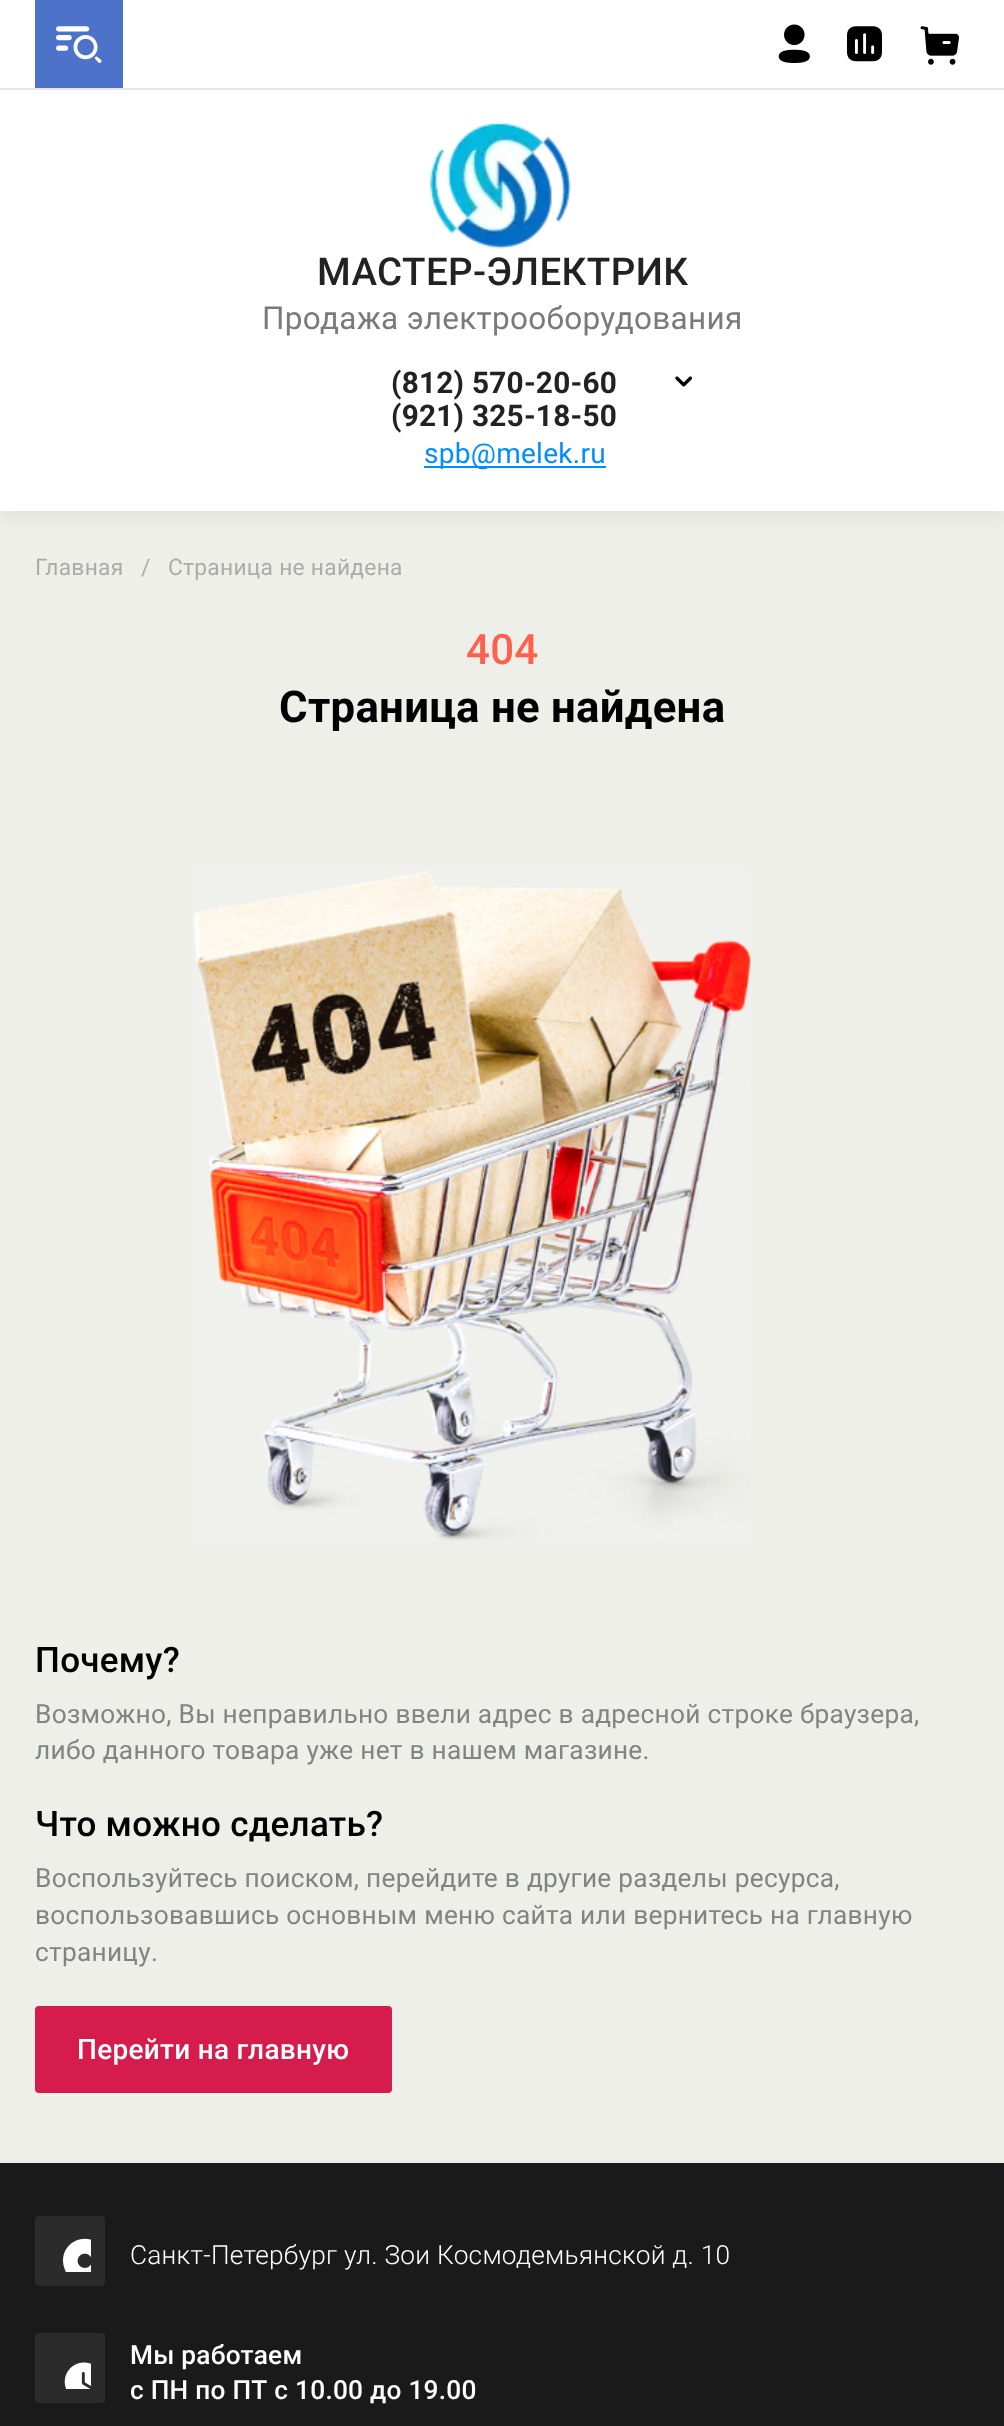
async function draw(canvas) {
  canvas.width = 1004;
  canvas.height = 2426;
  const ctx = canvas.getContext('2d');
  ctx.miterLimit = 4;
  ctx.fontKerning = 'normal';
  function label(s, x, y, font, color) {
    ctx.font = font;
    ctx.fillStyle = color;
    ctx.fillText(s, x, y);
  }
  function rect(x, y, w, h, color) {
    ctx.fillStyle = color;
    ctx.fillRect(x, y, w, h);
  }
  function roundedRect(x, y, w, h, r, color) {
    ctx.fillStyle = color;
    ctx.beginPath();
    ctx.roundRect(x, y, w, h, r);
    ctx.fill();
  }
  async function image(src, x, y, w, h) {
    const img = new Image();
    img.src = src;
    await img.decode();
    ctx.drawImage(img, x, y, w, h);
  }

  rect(0, 0, 1004, 2426, '#eeefe9');
  ctx.fillStyle = '#0000000d';
  ctx.filter = 'blur(9px)';
  ctx.beginPath();
  ctx.rect(0, 7, 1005, 511);
  ctx.fill();
  ctx.filter = 'none';
  rect(0, 0, 1004, 511, '#fff');
  rect(35, 0, 88, 88, '#4d72ca');
  await image('assets/img1.png', 56, 26, 46, 37);
  await image('assets/img2.png', 778, 24, 32, 39);
  await image('assets/img3.png', 847, 26, 35, 36);
  await image('assets/img4.png', 920, 26, 39, 39);
  rect(0, 88, 1004, 2, '#e6e6e6');
  await image('assets/img5.png', 429, 122, 142, 127);
  ctx.letterSpacing = '0.4px';
  label('МАСТЕР-ЭЛЕКТРИК', 317, 285, '500 38.5px Roboto', '#222');
  ctx.letterSpacing = '0.3px';
  label('Продажа электрооборудования', 262, 329, '31.5px Roboto', '#7a7a7a');
  ctx.letterSpacing = '0.25px';
  label('(812) 570-20-60', 391, 393, 'bold 29.75px Roboto', '#222');
  label('(921) 325-18-50', 391, 426, 'bold 29.75px Roboto', '#222');
  rect(424, 466, 182, 2, '#008efc');
  ctx.letterSpacing = '0.28px';
  label('spb@melek.ru', 424, 463, '28px Roboto', '#008efc');
  await image('assets/img6.png', 675, 376, 18, 11);
  label('Главная', 35, 575, '22.75px Roboto', '#abaca9');
  label('/', 141, 575, '22.75px Roboto', '#abaca9');
  label('Страница не найдена', 168, 575, '22.75px Roboto', '#abaca9');
  label('404', 466, 664, '500 42px Roboto', '#ff604e');
  label('Страница не найдена', 279, 722, 'bold 43.75px Roboto', '#000');
  await image('assets/img7.png', 192, 870, 559, 671);
  label('Почему?', 35, 1672, '500 35px Roboto', '#000');
  label('Возможно, Вы неправильно ввели адрес в адресной строке браузера,', 35, 1723, '26.25px Roboto', '#828383');
  label('либо данного товара уже нет в нашем магазине.', 35, 1759, '26.25px Roboto', '#828383');
  label('Что можно сделать?', 35, 1836, '500 35px Roboto', '#000');
  label('Воспользуйтесь поиском, перейдите в другие разделы ресурса,', 35, 1887, '26.25px Roboto', '#828383');
  label('воспользовавшись основным меню сайта или вернитесь на главную', 35, 1924, '26.25px Roboto', '#828383');
  label('страницу.', 35, 1961, '26.25px Roboto', '#828383');
  roundedRect(35, 2006, 357, 87, 4, '#d51c4c');
  label('Перейти на главную', 77, 2059, '500 28px Roboto', '#fff');
  rect(0, 2163, 1004, 263, '#1a1a1a');
  roundedRect(35, 2216, 70, 70, 4, '#2b2b2b');
  await image('assets/img8.png', 63, 2238, 28, 34);
  ctx.letterSpacing = '0.25px';
  label('Санкт-Петербург ул. Зои Космодемьянской д. 10', 130, 2264, '300 26.25px Roboto', '#fff');
  roundedRect(35, 2333, 70, 70, 4, '#2b2b2b');
  await image('assets/img9.png', 64, 2362, 27, 27);
  label('Мы работаем', 130, 2364, '500 26.25px Roboto', '#fff');
  label('с ПН по ПТ с 10.00 до 19.00', 130, 2399, '500 26.25px Roboto', '#fff');
}

draw(document.querySelector('canvas'));
